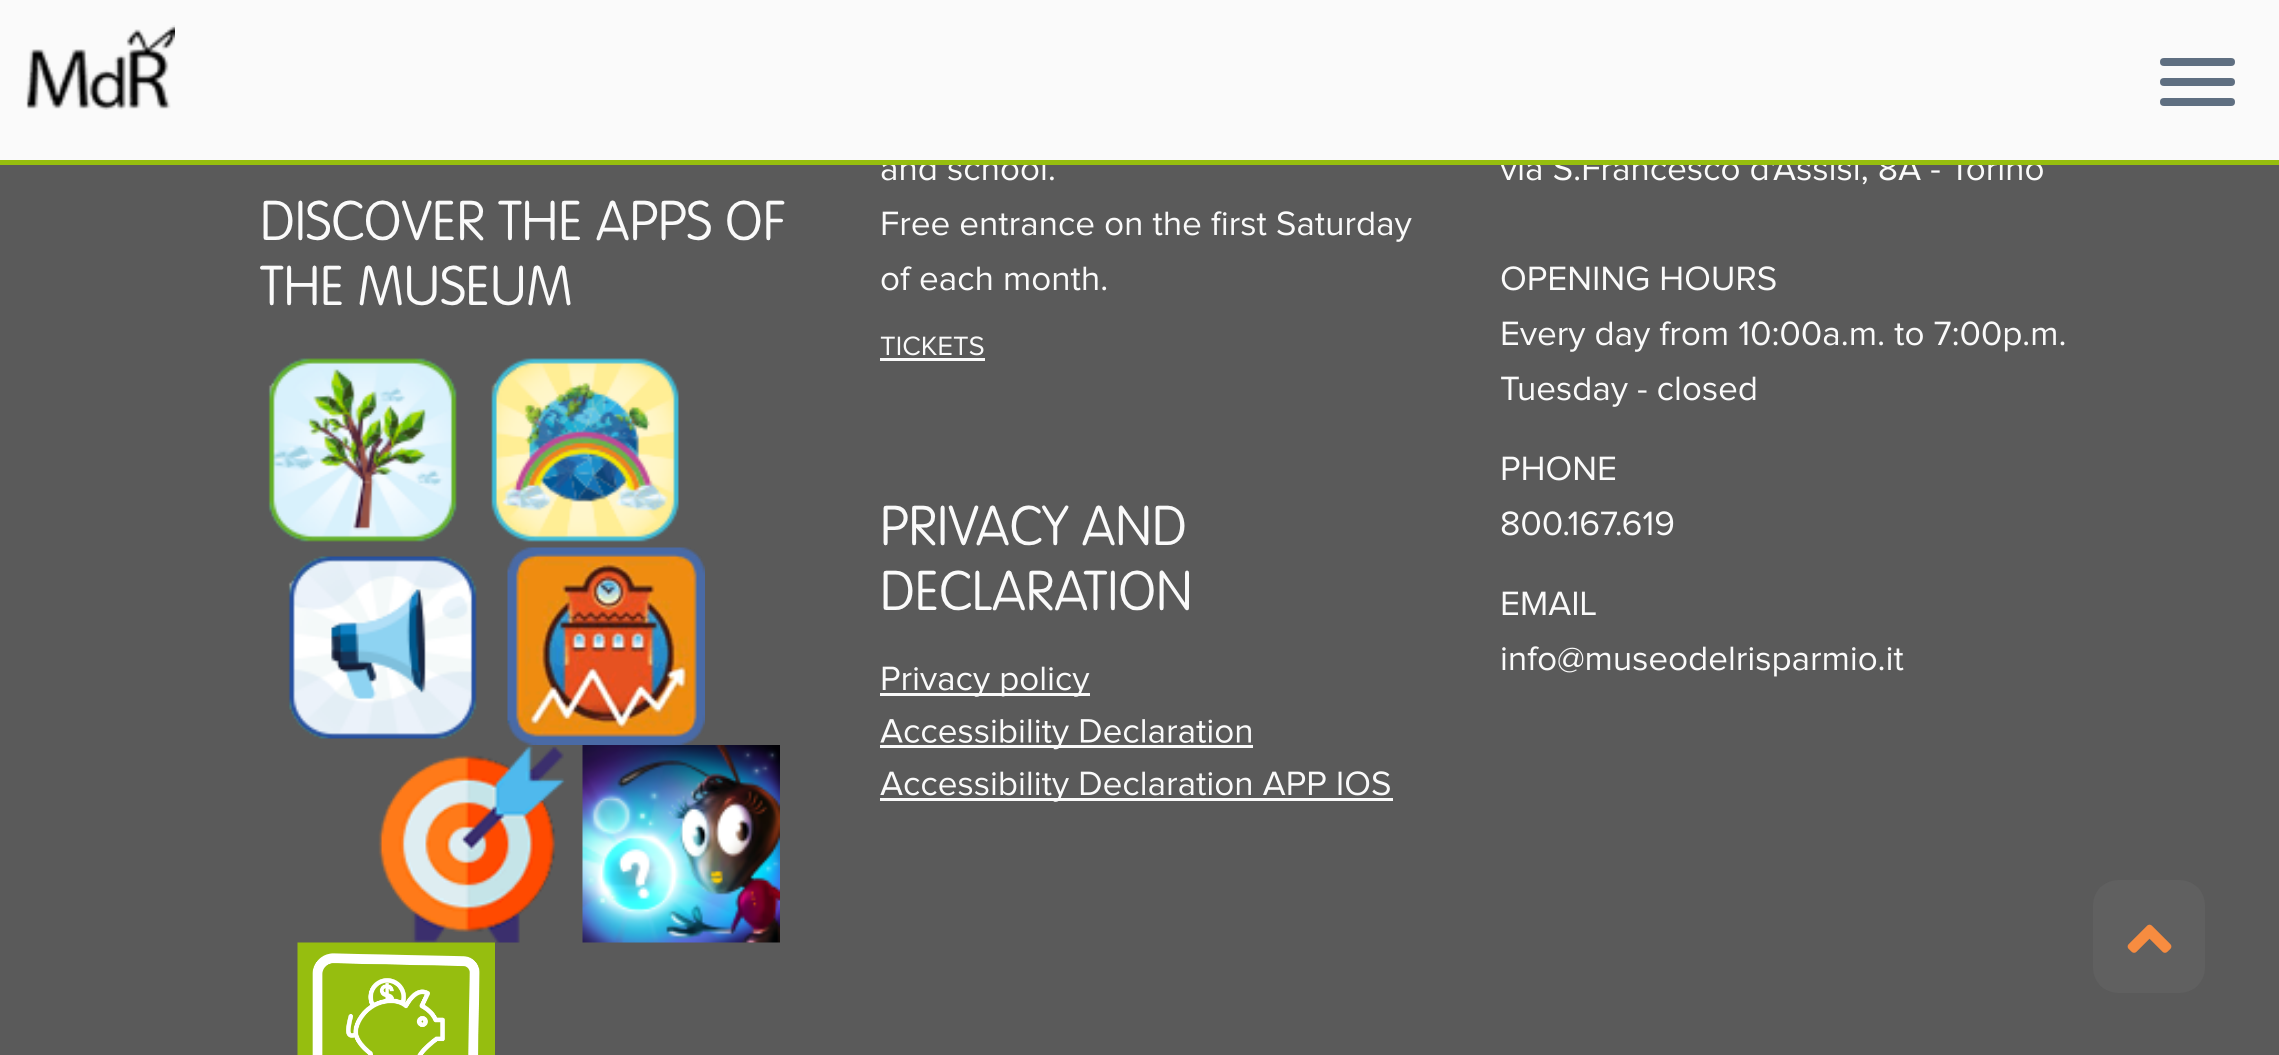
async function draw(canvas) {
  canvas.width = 2279;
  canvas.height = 1055;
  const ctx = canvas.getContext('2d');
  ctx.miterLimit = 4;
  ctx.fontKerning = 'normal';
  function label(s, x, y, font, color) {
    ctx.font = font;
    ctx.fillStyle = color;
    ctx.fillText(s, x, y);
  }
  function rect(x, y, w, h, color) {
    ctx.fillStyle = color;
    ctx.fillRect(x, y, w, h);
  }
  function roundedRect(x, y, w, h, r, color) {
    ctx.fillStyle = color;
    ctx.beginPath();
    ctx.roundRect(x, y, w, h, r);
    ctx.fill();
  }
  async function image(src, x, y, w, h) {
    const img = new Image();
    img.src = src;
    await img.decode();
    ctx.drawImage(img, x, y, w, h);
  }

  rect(0, 0, 2279, 1055, '#5a5a5a');
  rect(0, 0, 2279, 160, '#fafafa');
  rect(0, 160, 2279, 5, '#96be0e');
  await image('assets/img1.png', 26, 25, 149, 85);
  roundedRect(2160, 58, 75, 8, 4, '#5f6f81');
  roundedRect(2160, 78, 75, 8, 4, '#5f6f81');
  roundedRect(2160, 98, 75, 8, 4, '#5f6f81');
  label('DISCOVER THE APPS OF', 260, 240, '100 55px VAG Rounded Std', '#fafafa');
  label('THE MUSEUM', 260, 305, '100 55px VAG Rounded Std', '#fafafa');
  await image('assets/img2.png', 268, 358, 189, 184);
  await image('assets/img3.png', 491, 358, 188, 184);
  await image('assets/img4.png', 288, 556, 189, 183);
  await image('assets/img5.png', 507, 547, 198, 198);
  await image('assets/img6.png', 378, 745, 188, 198);
  await image('assets/img7.png', 582, 745, 198, 198);
  await image('assets/img8.png', 297, 942, 198, 113);
  await image('assets/img9.png', 1501, 165, 542, 20);
  await image('assets/img10.png', 1501, 266, 275, 25);
  await image('assets/img11.png', 1502, 321, 563, 31);
  await image('assets/img12.png', 1501, 376, 255, 31);
  await image('assets/img13.png', 1502, 456, 114, 25);
  await image('assets/img14.png', 1501, 511, 173, 25);
  await image('assets/img15.png', 1502, 591, 94, 24);
  await image('assets/img16.png', 1502, 646, 402, 31);
  await image('assets/img17.png', 881, 165, 173, 16);
  await image('assets/img18.png', 882, 211, 530, 31);
  await image('assets/img19.png', 881, 266, 226, 25);
  await image('assets/img20.png', 880, 336, 104, 20);
  rect(880, 358, 105, 3, '#fafafa');
  label('PRIVACY AND', 880, 545, '100 55px VAG Rounded Std', '#fafafa');
  label('DECLARATION', 880, 610, '100 55px VAG Rounded Std', '#fafafa');
  rect(880, 693, 210, 3, '#fafafa');
  await image('assets/img21.png', 882, 666, 208, 31);
  rect(880, 745, 373, 3, '#fafafa');
  await image('assets/img22.png', 880, 719, 371, 31);
  rect(880, 798, 513, 3, '#fafafa');
  await image('assets/img23.png', 880, 771, 510, 31);
  roundedRect(2093, 880, 112, 113, 25, '#606060');
  await image('assets/img24.png', 2127, 924, 45, 29);
}

draw(document.querySelector('canvas'));
